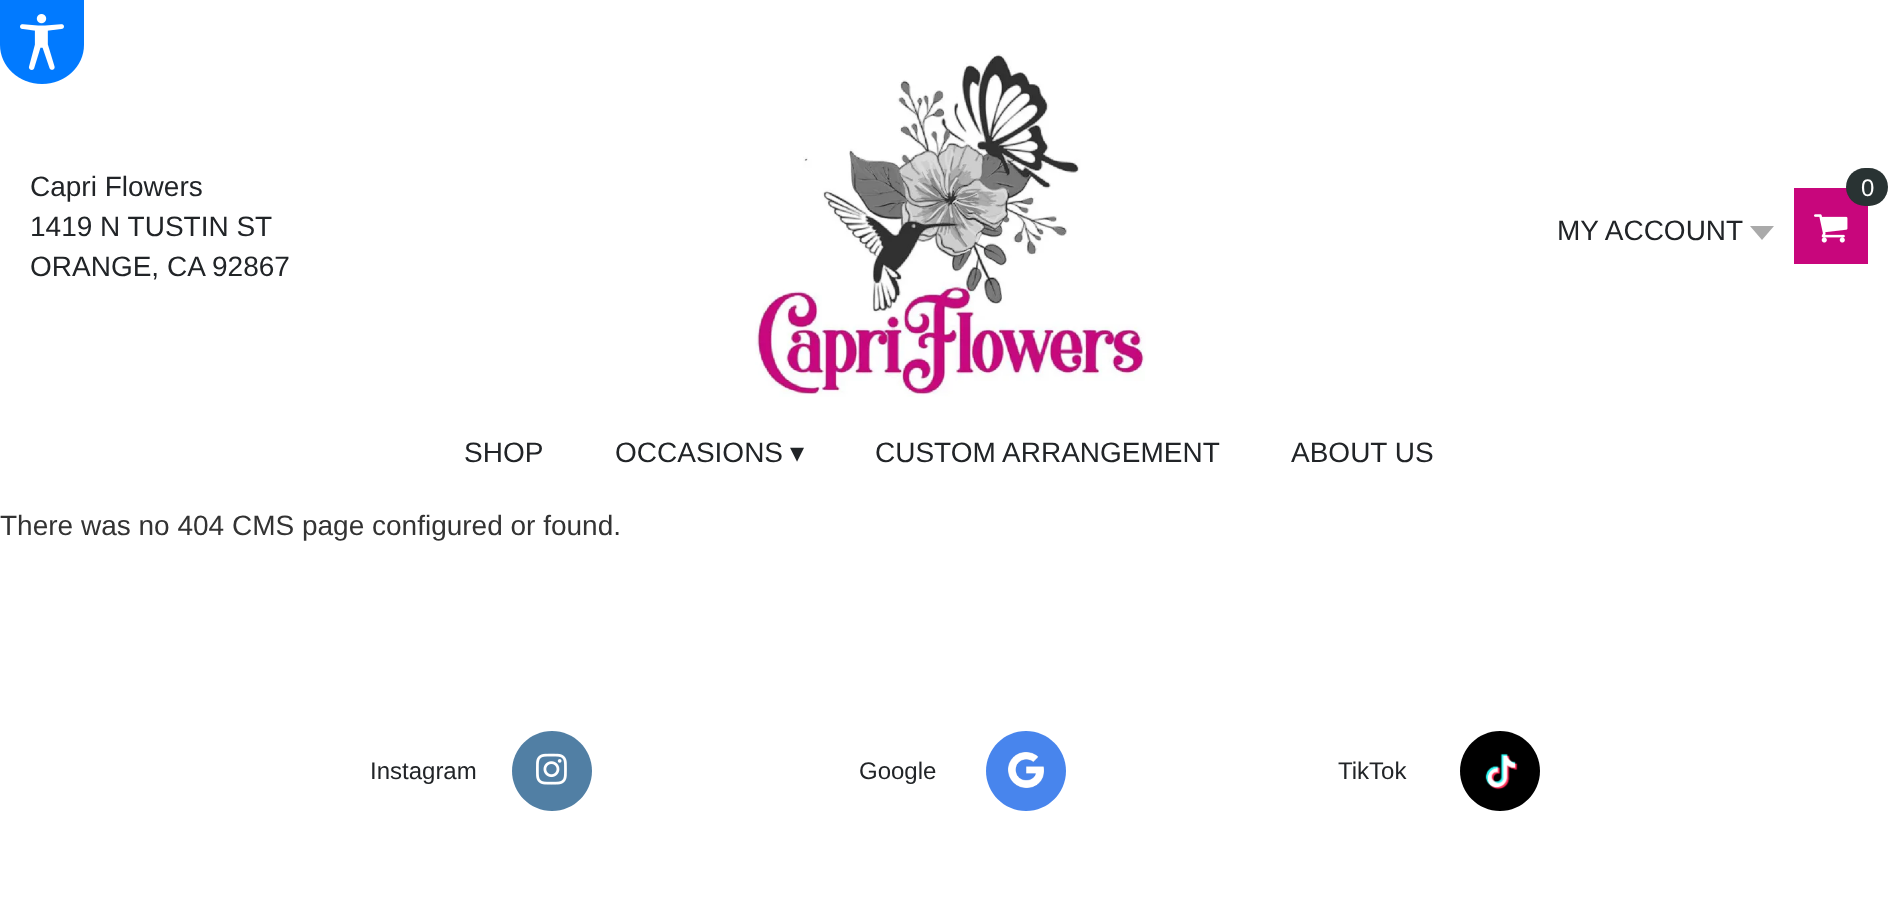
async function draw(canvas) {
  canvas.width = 1897;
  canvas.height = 908;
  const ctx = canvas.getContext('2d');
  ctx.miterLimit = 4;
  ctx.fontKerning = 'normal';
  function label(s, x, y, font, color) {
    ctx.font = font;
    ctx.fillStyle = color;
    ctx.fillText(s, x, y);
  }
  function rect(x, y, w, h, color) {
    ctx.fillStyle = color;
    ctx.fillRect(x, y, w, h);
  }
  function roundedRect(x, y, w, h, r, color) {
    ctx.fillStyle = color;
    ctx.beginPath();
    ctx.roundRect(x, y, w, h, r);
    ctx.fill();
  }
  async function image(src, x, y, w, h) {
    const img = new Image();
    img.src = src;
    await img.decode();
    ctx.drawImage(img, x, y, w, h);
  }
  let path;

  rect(0, 0, 1897, 908, '#fff');
  await image('assets/img1.png', 0, 0, 84, 84);
  label('Capri Flowers', 30, 196, '28px Liberation Sans', '#212427');
  label('1419 N TUSTIN ST', 30, 236, '28px Liberation Sans', '#212427');
  label('ORANGE, CA 92867', 30, 276, '28px Liberation Sans', '#212427');
  await image('assets/img2.png', 755, 54, 391, 343);
  rect(1794, 188, 74, 76, '#c8067c');
  roundedRect(1846, 168, 42, 38, 19, '#293333');
  label('0', 1861, 196, '24px Liberation Sans', '#fff');
  await image('assets/img3.png', 1814, 214, 34, 29);
  label('MY ACCOUNT', 1557, 240, '28px Liberation Sans', '#212427');
  await image('assets/img4.png', 1750, 226, 24, 14);
  label('SHOP', 464, 462, '28px Liberation Sans', '#212427');
  label('OCCASIONS', 615, 462, '28px Liberation Sans', '#212427');
  label('▾', 790, 462, '28px DejaVu Sans', '#212427');
  label('CUSTOM ARRANGEMENT', 875, 462, '28px Liberation Sans', '#212427');
  label('ABOUT US', 1291, 462, '28px Liberation Sans', '#212427');
  label('There was no 404 CMS page configured or found.', 0, 535, '28px Liberation Sans', '#333');
  label('Instagram', 370, 779, '24px Liberation Sans', '#212427');
  ctx.fillStyle = '#517fa4';
  path = new Path2D('M592 771C592 749 574 731 552 731C530 731 512 749 512 771C512 793 530 811 552 811C574 811 592 793 592 771Z');
  ctx.fill(path);
  await image('assets/img5.png', 536, 753, 31, 32);
  label('Google', 859, 779, '24px Liberation Sans', '#212427');
  ctx.fillStyle = '#4885ed';
  path = new Path2D('M1066 771C1066 749 1048 731 1026 731C1004 731 986 749 986 771C986 793 1004 811 1026 811C1048 811 1066 793 1066 771Z');
  ctx.fill(path);
  await image('assets/img6.png', 1008, 752, 36, 36);
  label('TikTok', 1338, 779, '24px Liberation Sans', '#212427');
  ctx.fillStyle = '#000';
  path = new Path2D('M1540 771C1540 749 1522 731 1500 731C1478 731 1460 749 1460 771C1460 793 1478 811 1500 811C1522 811 1540 793 1540 771Z');
  ctx.fill(path);
  await image('assets/img7.png', 1485, 753, 33, 37);
}

draw(document.querySelector('canvas'));
